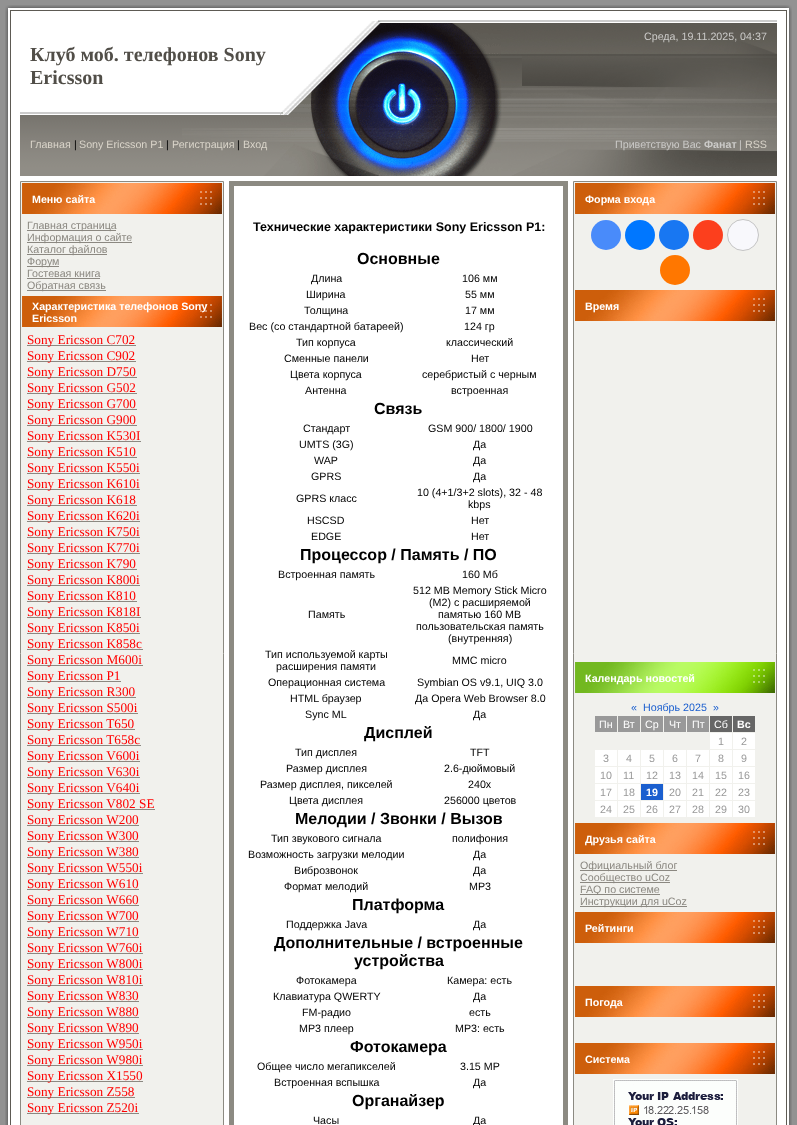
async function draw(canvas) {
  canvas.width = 797;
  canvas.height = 1125;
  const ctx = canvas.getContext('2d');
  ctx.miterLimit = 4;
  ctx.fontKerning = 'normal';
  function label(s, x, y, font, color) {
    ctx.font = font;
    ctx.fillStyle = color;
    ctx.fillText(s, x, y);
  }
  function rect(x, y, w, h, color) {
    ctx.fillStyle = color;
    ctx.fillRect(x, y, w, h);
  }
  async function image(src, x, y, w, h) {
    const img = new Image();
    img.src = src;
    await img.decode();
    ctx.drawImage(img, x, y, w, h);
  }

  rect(0, 0, 797, 1125, '#929292');
  await image('assets/img1.png', 5, 5, 15, 15);
  await image('assets/img2.png', 20, 5, 757, 15);
  await image('assets/img3.png', 777, 5, 15, 15);
  await image('assets/img4.png', 5, 20, 15, 1105);
  await image('assets/img5.png', 20, 20, 262, 156);
  await image('assets/img6.png', 282, 20, 219, 92);
  await image('assets/img7.png', 501, 20, 276, 92);
  label('Среда, 19.11.2025, 04:37', 644, 40, '10.7px Liberation Sans', '#cbcac8');
  label('Клуб моб. телефонов Sony', 30, 61, 'bold 20px Liberation Serif', '#514e48');
  label('Ericsson', 30, 84, 'bold 20px Liberation Serif', '#514e48');
  await image('assets/img8.png', 182, 128, 98, 48);
  label('Главная', 30, 148, '10.7px Liberation Sans', '#dad5ca');
  label('|', 74, 148, '10.7px Liberation Sans', '#000');
  label('Sony Ericsson P1', 79, 148, '10.7px Liberation Sans', '#dad5ca');
  label('|', 166, 148, '10.7px Liberation Sans', '#000');
  label('Регистрация', 172, 148, '10.7px Liberation Sans', '#dad5ca');
  label('|', 237, 148, '10.7px Liberation Sans', '#000');
  label('Вход', 243, 148, '10.7px Liberation Sans', '#dad5ca');
  await image('assets/img9.png', 280, 112, 221, 64);
  await image('assets/img10.png', 501, 112, 276, 64);
  label('Приветствую Вас', 615, 148, '10.7px Liberation Sans', '#cbcac8');
  label('Фанат', 704, 148, 'bold 10.7px Liberation Sans', '#cbcac8');
  label('|', 739, 148, '10.7px Liberation Sans', '#cbcac8');
  label('RSS', 745, 148, '10.7px Liberation Sans', '#dad5ca');
  rect(20, 176, 757, 949, '#fff');
  ctx.fillStyle = '#f1f1ed';
  ctx.beginPath();
  ctx.rect(20.5, 181.5, 203, 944);
  ctx.fill();
  ctx.strokeStyle = '#8c8a82';
  ctx.stroke();
  await image('assets/img11.png', 22, 183, 200, 31);
  label('Меню сайта', 32, 203, 'bold 10.7px Liberation Sans', '#fff');
  rect(27, 230, 89, 1, '#8b8881');
  label('Главная страница', 27, 229, '10.7px Liberation Sans', '#8b8881');
  rect(27, 242, 105, 1, '#8b8881');
  label('Информация о сайте', 27, 241, '10.7px Liberation Sans', '#8b8881');
  rect(27, 254, 80, 1, '#8b8881');
  label('Каталог файлов', 27, 253, '10.7px Liberation Sans', '#8b8881');
  rect(27, 266, 32, 1, '#8b8881');
  label('Форум', 27, 265, '10.7px Liberation Sans', '#8b8881');
  label('Гостевая книга', 27, 277, '10.7px Liberation Sans', '#8b8881');
  rect(27, 278, 73, 1, '#8b8881');
  rect(27, 290, 79, 1, '#8b8881');
  label('Обратная связь', 27, 289, '10.7px Liberation Sans', '#8b8881');
  await image('assets/img11.png', 22, 296, 200, 31);
  label('Характеристика телефонов Sony', 32, 310, 'bold 10.7px Liberation Sans', '#fff');
  label('Ericsson', 32, 322, 'bold 10.7px Liberation Sans', '#fff');
  rect(27, 345, 109, 1, '#8b8881');
  label('Sony Ericsson C702', 27, 344, '13.25px Liberation Serif', '#f00');
  rect(27, 361, 109, 1, '#8b8881');
  label('Sony Ericsson C902', 27, 360, '13.25px Liberation Serif', '#f00');
  rect(27, 377, 110, 1, '#8b8881');
  label('Sony Ericsson D750', 27, 376, '13.25px Liberation Serif', '#f00');
  rect(27, 393, 110, 1, '#8b8881');
  label('Sony Ericsson G502', 27, 392, '13.25px Liberation Serif', '#f00');
  rect(27, 409, 110, 1, '#8b8881');
  label('Sony Ericsson G700', 27, 408, '13.25px Liberation Serif', '#f00');
  rect(27, 425, 110, 1, '#8b8881');
  label('Sony Ericsson G900', 27, 424, '13.25px Liberation Serif', '#f00');
  rect(27, 441, 114, 1, '#8b8881');
  label('Sony Ericsson K530I', 27, 440, '13.25px Liberation Serif', '#f00');
  rect(27, 457, 110, 1, '#8b8881');
  label('Sony Ericsson K510', 27, 456, '13.25px Liberation Serif', '#f00');
  rect(27, 473, 113, 1, '#8b8881');
  label('Sony Ericsson K550i', 27, 472, '13.25px Liberation Serif', '#f00');
  rect(27, 489, 113, 1, '#8b8881');
  label('Sony Ericsson K610i', 27, 488, '13.25px Liberation Serif', '#f00');
  rect(27, 505, 110, 1, '#8b8881');
  label('Sony Ericsson K618', 27, 504, '13.25px Liberation Serif', '#f00');
  rect(27, 521, 113, 1, '#8b8881');
  label('Sony Ericsson K620i', 27, 520, '13.25px Liberation Serif', '#f00');
  rect(27, 537, 113, 1, '#8b8881');
  label('Sony Ericsson K750i', 27, 536, '13.25px Liberation Serif', '#f00');
  rect(27, 553, 113, 1, '#8b8881');
  label('Sony Ericsson K770i', 27, 552, '13.25px Liberation Serif', '#f00');
  rect(27, 569, 110, 1, '#8b8881');
  label('Sony Ericsson K790', 27, 568, '13.25px Liberation Serif', '#f00');
  rect(27, 585, 113, 1, '#8b8881');
  label('Sony Ericsson K800i', 27, 584, '13.25px Liberation Serif', '#f00');
  rect(27, 601, 110, 1, '#8b8881');
  label('Sony Ericsson K810', 27, 600, '13.25px Liberation Serif', '#f00');
  rect(27, 617, 114, 1, '#8b8881');
  label('Sony Ericsson K818I', 27, 616, '13.25px Liberation Serif', '#f00');
  rect(27, 633, 113, 1, '#8b8881');
  label('Sony Ericsson K850i', 27, 632, '13.25px Liberation Serif', '#f00');
  rect(27, 649, 116, 1, '#8b8881');
  label('Sony Ericsson K858c', 27, 648, '13.25px Liberation Serif', '#f00');
  rect(27, 665, 116, 1, '#8b8881');
  label('Sony Ericsson M600i', 27, 664, '13.25px Liberation Serif', '#f00');
  rect(27, 681, 94, 1, '#8b8881');
  label('Sony Ericsson P1', 27, 680, '13.25px Liberation Serif', '#f00');
  rect(27, 697, 109, 1, '#8b8881');
  label('Sony Ericsson R300', 27, 696, '13.25px Liberation Serif', '#f00');
  rect(27, 713, 111, 1, '#8b8881');
  label('Sony Ericsson S500i', 27, 712, '13.25px Liberation Serif', '#f00');
  rect(27, 729, 108, 1, '#8b8881');
  label('Sony Ericsson T650', 27, 728, '13.25px Liberation Serif', '#f00');
  rect(27, 745, 114, 1, '#8b8881');
  label('Sony Ericsson T658c', 27, 744, '13.25px Liberation Serif', '#f00');
  rect(27, 761, 113, 1, '#8b8881');
  label('Sony Ericsson V600i', 27, 760, '13.25px Liberation Serif', '#f00');
  rect(27, 777, 113, 1, '#8b8881');
  label('Sony Ericsson V630i', 27, 776, '13.25px Liberation Serif', '#f00');
  rect(27, 793, 113, 1, '#8b8881');
  label('Sony Ericsson V640i', 27, 792, '13.25px Liberation Serif', '#f00');
  rect(27, 809, 128, 1, '#8b8881');
  label('Sony Ericsson V802 SE', 27, 808, '13.25px Liberation Serif', '#f00');
  rect(27, 825, 112, 1, '#8b8881');
  label('Sony Ericsson W200', 27, 824, '13.25px Liberation Serif', '#f00');
  rect(27, 841, 112, 1, '#8b8881');
  label('Sony Ericsson W300', 27, 840, '13.25px Liberation Serif', '#f00');
  rect(27, 857, 112, 1, '#8b8881');
  label('Sony Ericsson W380', 27, 856, '13.25px Liberation Serif', '#f00');
  rect(27, 873, 116, 1, '#8b8881');
  label('Sony Ericsson W550i', 27, 872, '13.25px Liberation Serif', '#f00');
  rect(27, 889, 112, 1, '#8b8881');
  label('Sony Ericsson W610', 27, 888, '13.25px Liberation Serif', '#f00');
  rect(27, 905, 112, 1, '#8b8881');
  label('Sony Ericsson W660', 27, 904, '13.25px Liberation Serif', '#f00');
  rect(27, 921, 112, 1, '#8b8881');
  label('Sony Ericsson W700', 27, 920, '13.25px Liberation Serif', '#f00');
  rect(27, 937, 112, 1, '#8b8881');
  label('Sony Ericsson W710', 27, 936, '13.25px Liberation Serif', '#f00');
  rect(27, 953, 116, 1, '#8b8881');
  label('Sony Ericsson W760i', 27, 952, '13.25px Liberation Serif', '#f00');
  rect(27, 969, 116, 1, '#8b8881');
  label('Sony Ericsson W800i', 27, 968, '13.25px Liberation Serif', '#f00');
  rect(27, 985, 116, 1, '#8b8881');
  label('Sony Ericsson W810i', 27, 984, '13.25px Liberation Serif', '#f00');
  rect(27, 1001, 112, 1, '#8b8881');
  label('Sony Ericsson W830', 27, 1000, '13.25px Liberation Serif', '#f00');
  rect(27, 1017, 112, 1, '#8b8881');
  label('Sony Ericsson W880', 27, 1016, '13.25px Liberation Serif', '#f00');
  rect(27, 1033, 112, 1, '#8b8881');
  label('Sony Ericsson W890', 27, 1032, '13.25px Liberation Serif', '#f00');
  rect(27, 1049, 116, 1, '#8b8881');
  label('Sony Ericsson W950i', 27, 1048, '13.25px Liberation Serif', '#f00');
  rect(27, 1065, 116, 1, '#8b8881');
  label('Sony Ericsson W980i', 27, 1064, '13.25px Liberation Serif', '#f00');
  rect(27, 1081, 116, 1, '#8b8881');
  label('Sony Ericsson X1550', 27, 1080, '13.25px Liberation Serif', '#f00');
  rect(27, 1097, 108, 1, '#8b8881');
  label('Sony Ericsson Z558', 27, 1096, '13.25px Liberation Serif', '#f00');
  rect(27, 1113, 112, 1, '#8b8881');
  label('Sony Ericsson Z520i', 27, 1112, '13.25px Liberation Serif', '#f00');
  ctx.lineWidth = 5;
  ctx.strokeRect(231.5, 183.5, 334, 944);
  label('Технические характеристики Sony Ericsson P1:', 253, 231, 'bold 12.5px Liberation Sans', '#000');
  label('Основные', 357, 264, 'bold 16px Liberation Sans', '#000');
  label('Длина', 311, 282, '10.7px Liberation Sans', '#000');
  label('106 мм', 462, 282, '10.7px Liberation Sans', '#000');
  label('Ширина', 306, 298, '10.7px Liberation Sans', '#000');
  label('55 мм', 465, 298, '10.7px Liberation Sans', '#000');
  label('Толщина', 304, 314, '10.7px Liberation Sans', '#000');
  label('17 мм', 465, 314, '10.7px Liberation Sans', '#000');
  label('Вес (со стандартной батареей)', 249, 330, '10.7px Liberation Sans', '#000');
  label('124 гр', 464, 330, '10.7px Liberation Sans', '#000');
  label('Тип корпуса', 296, 346, '10.7px Liberation Sans', '#000');
  label('классический', 446, 346, '10.7px Liberation Sans', '#000');
  label('Сменные панели', 284, 362, '10.7px Liberation Sans', '#000');
  label('Нет', 471, 362, '10.7px Liberation Sans', '#000');
  label('Цвета корпуса', 290, 378, '10.7px Liberation Sans', '#000');
  label('серебристый с черным', 422, 378, '10.7px Liberation Sans', '#000');
  label('Антенна', 305, 394, '10.7px Liberation Sans', '#000');
  label('встроенная', 451, 394, '10.7px Liberation Sans', '#000');
  label('Связь', 374, 414, 'bold 16px Liberation Sans', '#000');
  label('Стандарт', 303, 432, '10.7px Liberation Sans', '#000');
  label('GSM 900/ 1800/ 1900', 428, 432, '10.7px Liberation Sans', '#000');
  label('UMTS (3G)', 299, 448, '10.7px Liberation Sans', '#000');
  label('Да', 473, 448, '10.7px Liberation Sans', '#000');
  label('WAP', 314, 464, '10.7px Liberation Sans', '#000');
  label('Да', 473, 464, '10.7px Liberation Sans', '#000');
  label('GPRS', 311, 480, '10.7px Liberation Sans', '#000');
  label('Да', 473, 480, '10.7px Liberation Sans', '#000');
  label('GPRS класс', 296, 502, '10.7px Liberation Sans', '#000');
  label('10 (4+1/3+2 slots), 32 - 48', 417, 496, '10.7px Liberation Sans', '#000');
  label('kbps', 468, 508, '10.7px Liberation Sans', '#000');
  label('HSCSD', 307, 524, '10.7px Liberation Sans', '#000');
  label('Нет', 471, 524, '10.7px Liberation Sans', '#000');
  label('EDGE', 311, 540, '10.7px Liberation Sans', '#000');
  label('Нет', 471, 540, '10.7px Liberation Sans', '#000');
  label('Процессор / Память / ПО', 300, 560, 'bold 16px Liberation Sans', '#000');
  label('Встроенная память', 278, 578, '10.7px Liberation Sans', '#000');
  label('160 Мб', 462, 578, '10.7px Liberation Sans', '#000');
  label('Память', 308, 618, '10.7px Liberation Sans', '#000');
  label('512 MB Memory Stick Micro', 413, 594, '10.7px Liberation Sans', '#000');
  label('(M2) с расширяемой', 429, 606, '10.7px Liberation Sans', '#000');
  label('памятью 160 MB', 438, 618, '10.7px Liberation Sans', '#000');
  label('пользовательская память', 416, 630, '10.7px Liberation Sans', '#000');
  label('(внутренняя)', 448, 642, '10.7px Liberation Sans', '#000');
  label('Тип используемой карты', 265, 658, '10.7px Liberation Sans', '#000');
  label('расширения памяти', 276, 670, '10.7px Liberation Sans', '#000');
  label('MMC micro', 452, 664, '10.7px Liberation Sans', '#000');
  label('Операционная система', 268, 686, '10.7px Liberation Sans', '#000');
  label('Symbian OS v9.1, UIQ 3.0', 417, 686, '10.7px Liberation Sans', '#000');
  label('HTML браузер', 290, 702, '10.7px Liberation Sans', '#000');
  label('Да Opera Web Browser 8.0', 415, 702, '10.7px Liberation Sans', '#000');
  label('Sync ML', 305, 718, '10.7px Liberation Sans', '#000');
  label('Да', 473, 718, '10.7px Liberation Sans', '#000');
  label('Дисплей', 364, 738, 'bold 16px Liberation Sans', '#000');
  label('Тип дисплея', 295, 756, '10.7px Liberation Sans', '#000');
  label('TFT', 470, 756, '10.7px Liberation Sans', '#000');
  label('Размер дисплея', 286, 772, '10.7px Liberation Sans', '#000');
  label('2.6-дюймовый', 444, 772, '10.7px Liberation Sans', '#000');
  label('Размер дисплея, пикселей', 260, 788, '10.7px Liberation Sans', '#000');
  label('240x', 468, 788, '10.7px Liberation Sans', '#000');
  label('Цвета дисплея', 289, 804, '10.7px Liberation Sans', '#000');
  label('256000 цветов', 444, 804, '10.7px Liberation Sans', '#000');
  label('Мелодии / Звонки / Вызов', 295, 824, 'bold 16px Liberation Sans', '#000');
  label('Тип звукового сигнала', 271, 842, '10.7px Liberation Sans', '#000');
  label('полифония', 452, 842, '10.7px Liberation Sans', '#000');
  label('Возможность загрузки мелодии', 248, 858, '10.7px Liberation Sans', '#000');
  label('Да', 473, 858, '10.7px Liberation Sans', '#000');
  label('Виброзвонок', 294, 874, '10.7px Liberation Sans', '#000');
  label('Да', 473, 874, '10.7px Liberation Sans', '#000');
  label('Формат мелодий', 284, 890, '10.7px Liberation Sans', '#000');
  label('MP3', 469, 890, '10.7px Liberation Sans', '#000');
  label('Платформа', 352, 910, 'bold 16px Liberation Sans', '#000');
  label('Поддержка Java', 286, 928, '10.7px Liberation Sans', '#000');
  label('Да', 473, 928, '10.7px Liberation Sans', '#000');
  label('Дополнительные / встроенные', 274, 948, 'bold 16px Liberation Sans', '#000');
  label('устройства', 354, 966, 'bold 16px Liberation Sans', '#000');
  label('Фотокамера', 296, 984, '10.7px Liberation Sans', '#000');
  label('Камера: есть', 447, 984, '10.7px Liberation Sans', '#000');
  label('Клавиатура QWERTY', 273, 1000, '10.7px Liberation Sans', '#000');
  label('Да', 473, 1000, '10.7px Liberation Sans', '#000');
  label('FM-радио', 302, 1016, '10.7px Liberation Sans', '#000');
  label('есть', 469, 1016, '10.7px Liberation Sans', '#000');
  label('MP3 плеер', 299, 1032, '10.7px Liberation Sans', '#000');
  label('MP3: есть', 455, 1032, '10.7px Liberation Sans', '#000');
  label('Фотокамера', 350, 1052, 'bold 16px Liberation Sans', '#000');
  label('Общее число мегапикселей', 257, 1070, '10.7px Liberation Sans', '#000');
  label('3.15 МP', 460, 1070, '10.7px Liberation Sans', '#000');
  label('Встроенная вспышка', 274, 1086, '10.7px Liberation Sans', '#000');
  label('Да', 473, 1086, '10.7px Liberation Sans', '#000');
  label('Органайзер', 352, 1106, 'bold 16px Liberation Sans', '#000');
  label('Часы', 313, 1124, '10.7px Liberation Sans', '#000');
  label('Да', 473, 1124, '10.7px Liberation Sans', '#000');
  ctx.fillStyle = '#f1f1ed';
  ctx.beginPath();
  ctx.rect(573.5, 181.5, 203, 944);
  ctx.fill();
  ctx.lineWidth = 1;
  ctx.stroke();
  await image('assets/img11.png', 575, 183, 200, 31);
  label('Форма входа', 585, 203, 'bold 10.7px Liberation Sans', '#fff');
  ctx.fillStyle = '#498bfa';
  ctx.beginPath();
  ctx.arc(606, 235, 15, 0, 2 * Math.PI);
  ctx.fill();
  ctx.fillStyle = '#07f';
  ctx.beginPath();
  ctx.arc(640, 235, 15, 0, 2 * Math.PI);
  ctx.fill();
  ctx.fillStyle = '#1877f2';
  ctx.beginPath();
  ctx.arc(674, 235, 15, 0, 2 * Math.PI);
  ctx.fill();
  ctx.fillStyle = '#fc3f1d';
  ctx.beginPath();
  ctx.arc(708, 235, 15, 0, 2 * Math.PI);
  ctx.fill();
  ctx.fillStyle = '#f8f8fc';
  ctx.beginPath();
  ctx.arc(743, 235, 15.5, 0, 2 * Math.PI);
  ctx.fill();
  ctx.strokeStyle = '#c4c4c4';
  ctx.stroke();
  ctx.fillStyle = '#f70';
  ctx.beginPath();
  ctx.arc(675, 270, 15, 0, 2 * Math.PI);
  ctx.fill();
  await image('assets/img11.png', 575, 290, 200, 31);
  label('Время', 585, 310, 'bold 10.7px Liberation Sans', '#fff');
  await image('assets/img12.png', 575, 662, 200, 31);
  label('Календарь новостей', 585, 682, 'bold 10.7px Liberation Sans', '#fff');
  label('«', 631, 711, '10.7px Liberation Sans', '#1b5fcf');
  label('Ноябрь 2025', 643, 711, '10.7px Liberation Sans', '#1b5fcf');
  label('»', 713, 711, '10.7px Liberation Sans', '#1b5fcf');
  rect(595, 716, 22, 16, '#999');
  label('Пн', 599, 728, '10.7px Liberation Sans', '#fff');
  rect(618, 716, 22, 16, '#999');
  label('Вт', 623, 728, '10.7px Liberation Sans', '#fff');
  rect(641, 716, 22, 16, '#999');
  label('Ср', 645, 728, '10.7px Liberation Sans', '#fff');
  rect(664, 716, 22, 16, '#999');
  label('Чт', 669, 728, '10.7px Liberation Sans', '#fff');
  rect(687, 716, 22, 16, '#999');
  label('Пт', 692, 728, '10.7px Liberation Sans', '#fff');
  rect(710, 716, 22, 16, '#666');
  label('Сб', 714, 728, '10.7px Liberation Sans', '#fff');
  rect(733, 716, 22, 16, '#666');
  label('Вс', 737, 728, 'bold 10.7px Liberation Sans', '#fff');
  rect(710, 733, 22, 16, '#fff');
  label('1', 718, 745, '10.7px Liberation Sans', '#999');
  rect(733, 733, 22, 16, '#fff');
  label('2', 741, 745, '10.7px Liberation Sans', '#999');
  rect(595, 750, 22, 16, '#fff');
  label('3', 603, 762, '10.7px Liberation Sans', '#999');
  rect(618, 750, 22, 16, '#fff');
  label('4', 626, 762, '10.7px Liberation Sans', '#999');
  rect(641, 750, 22, 16, '#fff');
  label('5', 649, 762, '10.7px Liberation Sans', '#999');
  rect(664, 750, 22, 16, '#fff');
  label('6', 672, 762, '10.7px Liberation Sans', '#999');
  rect(687, 750, 22, 16, '#fff');
  label('7', 695, 762, '10.7px Liberation Sans', '#999');
  rect(710, 750, 22, 16, '#fff');
  label('8', 718, 762, '10.7px Liberation Sans', '#999');
  rect(733, 750, 22, 16, '#fff');
  label('9', 741, 762, '10.7px Liberation Sans', '#999');
  rect(595, 767, 22, 16, '#fff');
  label('10', 600, 779, '10.7px Liberation Sans', '#999');
  rect(618, 767, 22, 16, '#fff');
  label('11', 623, 779, '10.7px Liberation Sans', '#999');
  rect(641, 767, 22, 16, '#fff');
  label('12', 646, 779, '10.7px Liberation Sans', '#999');
  rect(664, 767, 22, 16, '#fff');
  label('13', 669, 779, '10.7px Liberation Sans', '#999');
  rect(687, 767, 22, 16, '#fff');
  label('14', 692, 779, '10.7px Liberation Sans', '#999');
  rect(710, 767, 22, 16, '#fff');
  label('15', 715, 779, '10.7px Liberation Sans', '#999');
  rect(733, 767, 22, 16, '#fff');
  label('16', 738, 779, '10.7px Liberation Sans', '#999');
  rect(595, 784, 22, 16, '#fff');
  label('17', 600, 796, '10.7px Liberation Sans', '#999');
  rect(618, 784, 22, 16, '#fff');
  label('18', 623, 796, '10.7px Liberation Sans', '#999');
  rect(641, 784, 22, 16, '#1b5fcf');
  label('19', 646, 796, 'bold 10.7px Liberation Sans', '#fff');
  rect(664, 784, 22, 16, '#fff');
  label('20', 669, 796, '10.7px Liberation Sans', '#999');
  rect(687, 784, 22, 16, '#fff');
  label('21', 692, 796, '10.7px Liberation Sans', '#999');
  rect(710, 784, 22, 16, '#fff');
  label('22', 715, 796, '10.7px Liberation Sans', '#999');
  rect(733, 784, 22, 16, '#fff');
  label('23', 738, 796, '10.7px Liberation Sans', '#999');
  rect(595, 801, 22, 16, '#fff');
  label('24', 600, 813, '10.7px Liberation Sans', '#999');
  rect(618, 801, 22, 16, '#fff');
  label('25', 623, 813, '10.7px Liberation Sans', '#999');
  rect(641, 801, 22, 16, '#fff');
  label('26', 646, 813, '10.7px Liberation Sans', '#999');
  rect(664, 801, 22, 16, '#fff');
  label('27', 669, 813, '10.7px Liberation Sans', '#999');
  rect(687, 801, 22, 16, '#fff');
  label('28', 692, 813, '10.7px Liberation Sans', '#999');
  rect(710, 801, 22, 16, '#fff');
  label('29', 715, 813, '10.7px Liberation Sans', '#999');
  rect(733, 801, 22, 16, '#fff');
  label('30', 738, 813, '10.7px Liberation Sans', '#999');
  await image('assets/img11.png', 575, 823, 200, 31);
  label('Друзья сайта', 585, 843, 'bold 10.7px Liberation Sans', '#fff');
  rect(580, 870, 97, 1, '#8b8881');
  label('Официальный блог', 580, 869, '10.7px Liberation Sans', '#8b8881');
  rect(580, 882, 90, 1, '#8b8881');
  label('Сообщество uCoz', 580, 881, '10.7px Liberation Sans', '#8b8881');
  rect(580, 894, 80, 1, '#8b8881');
  label('FAQ по системе', 580, 893, '10.7px Liberation Sans', '#8b8881');
  rect(580, 906, 107, 1, '#8b8881');
  label('Инструкции для uCoz', 580, 905, '10.7px Liberation Sans', '#8b8881');
  await image('assets/img11.png', 575, 912, 200, 31);
  label('Рейтинги', 585, 932, 'bold 10.7px Liberation Sans', '#fff');
  await image('assets/img11.png', 575, 986, 200, 31);
  label('Погода', 585, 1006, 'bold 10.7px Liberation Sans', '#fff');
  await image('assets/img11.png', 575, 1043, 200, 31);
  label('Система', 585, 1063, 'bold 10.7px Liberation Sans', '#fff');
  await image('assets/img13.png', 613, 1079, 125, 46);
  await image('assets/img14.png', 777, 20, 15, 1105);
}

draw(document.querySelector('canvas'));
